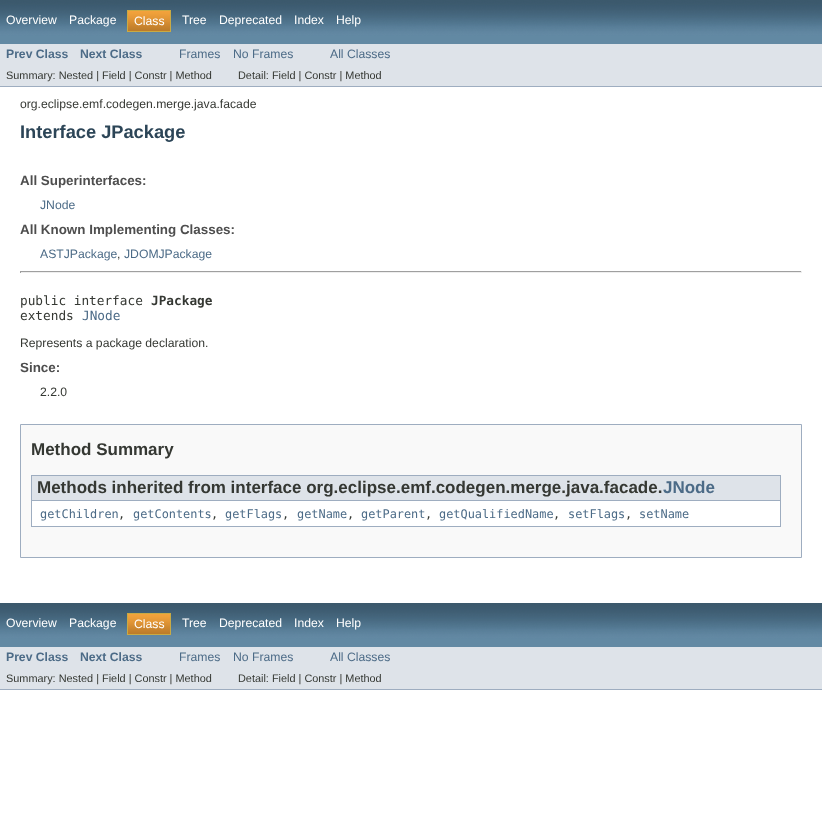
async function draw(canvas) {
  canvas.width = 822;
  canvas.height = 837;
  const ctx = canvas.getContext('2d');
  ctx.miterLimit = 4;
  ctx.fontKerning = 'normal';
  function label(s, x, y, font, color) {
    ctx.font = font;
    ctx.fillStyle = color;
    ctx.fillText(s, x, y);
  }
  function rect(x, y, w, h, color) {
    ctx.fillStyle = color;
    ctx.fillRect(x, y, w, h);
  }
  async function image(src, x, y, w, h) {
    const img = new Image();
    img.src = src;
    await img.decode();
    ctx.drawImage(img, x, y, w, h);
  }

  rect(0, 0, 822, 837, '#fff');
  await image('assets/img1.png', 0, 0, 822, 44);
  label('Overview', 6, 24, '12.2px Liberation Sans', '#fff');
  label('Package', 69, 24, '12.2px Liberation Sans', '#fff');
  await image('assets/img2.png', 128, 11, 42, 20);
  ctx.strokeStyle = '#c9aa44';
  ctx.strokeRect(127.5, 10.5, 43, 21);
  label('Class', 134, 25, '12.2px Liberation Sans', '#fff');
  label('Tree', 182, 24, '12.2px Liberation Sans', '#fff');
  label('Deprecated', 219, 24, '12.2px Liberation Sans', '#fff');
  label('Index', 294, 24, '12.2px Liberation Sans', '#fff');
  label('Help', 336, 24, '12.2px Liberation Sans', '#fff');
  rect(0, 44, 822, 42, '#dee3e9');
  rect(0, 86, 822, 1, '#9eadc0');
  label('Prev Class', 6, 58, 'bold 12.2px Liberation Sans', '#4c6b87');
  label('Next Class', 80, 58, 'bold 12.2px Liberation Sans', '#4c6b87');
  label('Frames', 179, 58, '12.2px Liberation Sans', '#4c6b87');
  label('No Frames', 233, 58, '12.2px Liberation Sans', '#4c6b87');
  label('All Classes', 330, 58, '12.2px Liberation Sans', '#4c6b87');
  label('Summary: Nested | Field | Constr | Method', 6, 79, '10.9px Liberation Sans', '#353833');
  label('Detail: Field | Constr | Method', 238, 79, '10.9px Liberation Sans', '#353833');
  label('org.eclipse.emf.codegen.merge.java.facade', 20, 108, '12.2px Liberation Sans', '#353833');
  label('Interface JPackage', 20, 138, 'bold 18.25px Liberation Sans', '#2c4557');
  label('All Superinterfaces:', 20, 185, 'bold 13.4px Liberation Sans', '#4e4e4e');
  label('JNode', 40, 209, '12.2px Liberation Sans', '#4c6b87');
  label('All Known Implementing Classes:', 20, 234, 'bold 13.4px Liberation Sans', '#4e4e4e');
  label('ASTJPackage', 40, 258, '12.2px Liberation Sans', '#4c6b87');
  label(',', 117, 258, '12.2px Liberation Sans', '#353833');
  label('JDOMJPackage', 124, 258, '12.2px Liberation Sans', '#4c6b87');
  rect(20, 271, 782, 1, '#9f9f9f');
  rect(801, 271, 1, 2, '#eee');
  rect(20, 272, 782, 1, '#eee');
  rect(20, 271, 1, 2, '#9f9f9f');
  label('public interface', 20, 305, '12.75px DejaVu Sans Mono', '#353833');
  label('JPackage', 151, 305, 'bold 12.75px DejaVu Sans Mono', '#353833');
  label('extends', 20, 320, '12.75px DejaVu Sans Mono', '#353833');
  label('JNode', 82, 320, '12.75px DejaVu Sans Mono', '#4c6b87');
  label('Represents a package declaration.', 20, 347, '12.2px Liberation Sans', '#353833');
  label('Since:', 20, 372, 'bold 13.4px Liberation Sans', '#4e4e4e');
  label('2.2.0', 40, 396, '12.2px Liberation Sans', '#353833');
  ctx.fillStyle = '#f9f9f9';
  ctx.beginPath();
  ctx.rect(20.5, 424.5, 781, 133);
  ctx.fill();
  ctx.strokeStyle = '#9eadc0';
  ctx.stroke();
  label('Method Summary', 31, 455, 'bold 17px Liberation Sans', '#353833');
  rect(32, 501, 748, 25, '#fff');
  rect(780, 475, 1, 52, '#9eadc0');
  rect(31, 526, 750, 1, '#9eadc0');
  rect(31, 475, 1, 52, '#9eadc0');
  rect(32, 476, 748, 24, '#dee3e9');
  rect(32, 475, 748, 1, '#9eadc0');
  rect(32, 500, 748, 1, '#9eadc0');
  label('Methods inherited from interface org.eclipse.emf.codegen.merge.java.facade.', 37, 493, 'bold 17px Liberation Sans', '#353833');
  label('JNode', 663, 493, 'bold 17px Liberation Sans', '#4c6b87');
  label('getChildren', 40, 518, '11.9px DejaVu Sans Mono', '#4c6b87');
  label(',', 118, 518, '11.9px DejaVu Sans Mono', '#353833');
  label('getContents', 133, 518, '11.9px DejaVu Sans Mono', '#4c6b87');
  label(',', 211, 518, '11.9px DejaVu Sans Mono', '#353833');
  label('getFlags', 225, 518, '11.9px DejaVu Sans Mono', '#4c6b87');
  label(',', 282, 518, '11.9px DejaVu Sans Mono', '#353833');
  label('getName', 297, 518, '11.9px DejaVu Sans Mono', '#4c6b87');
  label(',', 347, 518, '11.9px DejaVu Sans Mono', '#353833');
  label('getParent', 361, 518, '11.9px DejaVu Sans Mono', '#4c6b87');
  label(',', 425, 518, '11.9px DejaVu Sans Mono', '#353833');
  label('getQualifiedName', 439, 518, '11.9px DejaVu Sans Mono', '#4c6b87');
  label(',', 553, 518, '11.9px DejaVu Sans Mono', '#353833');
  label('setFlags', 568, 518, '11.9px DejaVu Sans Mono', '#4c6b87');
  label(',', 625, 518, '11.9px DejaVu Sans Mono', '#353833');
  label('setName', 639, 518, '11.9px DejaVu Sans Mono', '#4c6b87');
  await image('assets/img1.png', 0, 603, 822, 44);
  label('Overview', 6, 627, '12.2px Liberation Sans', '#fff');
  label('Package', 69, 627, '12.2px Liberation Sans', '#fff');
  await image('assets/img2.png', 128, 614, 42, 20);
  ctx.strokeStyle = '#c9aa44';
  ctx.strokeRect(127.5, 613.5, 43, 21);
  label('Class', 134, 628, '12.2px Liberation Sans', '#fff');
  label('Tree', 182, 627, '12.2px Liberation Sans', '#fff');
  label('Deprecated', 219, 627, '12.2px Liberation Sans', '#fff');
  label('Index', 294, 627, '12.2px Liberation Sans', '#fff');
  label('Help', 336, 627, '12.2px Liberation Sans', '#fff');
  rect(0, 647, 822, 42, '#dee3e9');
  rect(0, 689, 822, 1, '#9eadc0');
  label('Prev Class', 6, 661, 'bold 12.2px Liberation Sans', '#4c6b87');
  label('Next Class', 80, 661, 'bold 12.2px Liberation Sans', '#4c6b87');
  label('Frames', 179, 661, '12.2px Liberation Sans', '#4c6b87');
  label('No Frames', 233, 661, '12.2px Liberation Sans', '#4c6b87');
  label('All Classes', 330, 661, '12.2px Liberation Sans', '#4c6b87');
  label('Summary: Nested | Field | Constr | Method', 6, 682, '10.9px Liberation Sans', '#353833');
  label('Detail: Field | Constr | Method', 238, 682, '10.9px Liberation Sans', '#353833');
}

draw(document.querySelector('canvas'));
